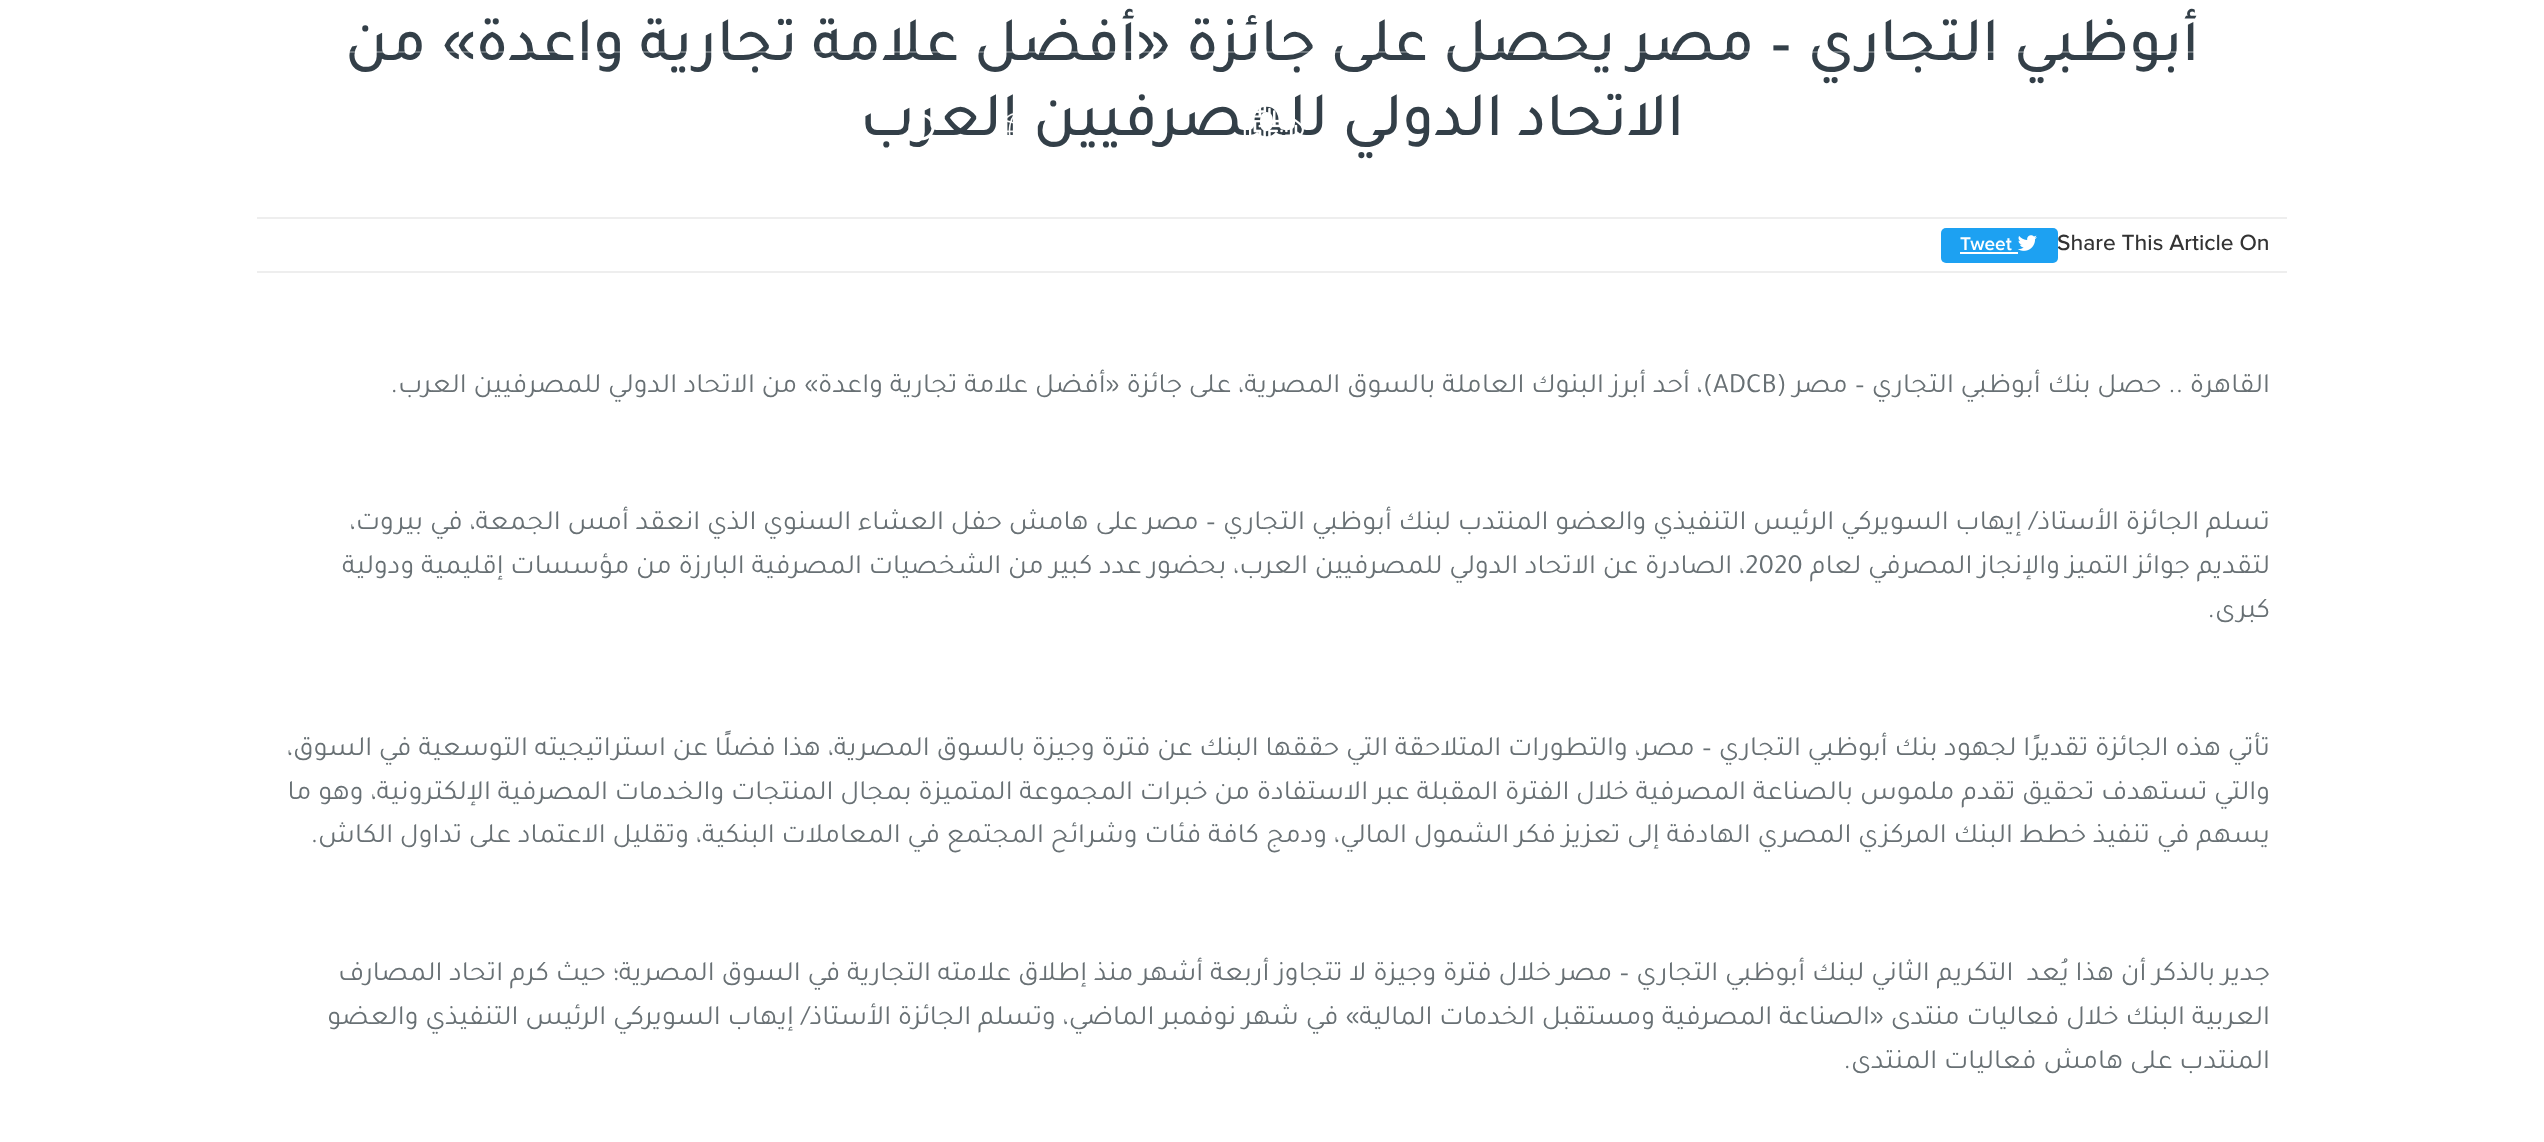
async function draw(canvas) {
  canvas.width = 2544;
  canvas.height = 1142;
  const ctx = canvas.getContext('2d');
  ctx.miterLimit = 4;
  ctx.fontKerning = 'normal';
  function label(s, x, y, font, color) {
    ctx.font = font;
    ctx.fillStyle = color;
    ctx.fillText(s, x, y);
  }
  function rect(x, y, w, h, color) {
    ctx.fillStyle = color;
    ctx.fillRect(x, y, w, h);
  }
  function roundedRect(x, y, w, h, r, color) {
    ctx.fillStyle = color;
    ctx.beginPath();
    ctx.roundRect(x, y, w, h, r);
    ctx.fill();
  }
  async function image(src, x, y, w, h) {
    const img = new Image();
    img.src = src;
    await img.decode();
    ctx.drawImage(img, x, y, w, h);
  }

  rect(0, 0, 2544, 1142, '#fff');
  ctx.direction = 'rtl';
  label('أبوظبي التجاري – مصر يحصل على جائزة «أفضل علامة تجارية واعدة» من', 2199, 60, '500 63px Tajawal', '#333f48');
  label('الاتحاد الدولي للمصرفيين العرب', 1684, 135, '500 63px Tajawal', '#333f48');
  rect(257, 217, 2030, 2, '#eee');
  rect(257, 271, 2030, 2, '#eee');
  ctx.direction = 'ltr';
  label('Share This Article On', 2057, 250, '500 22.75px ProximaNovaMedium', '#333');
  roundedRect(1941, 228, 117, 35, 5, '#1da1f2');
  await image('assets/img1.png', 2017, 235, 20, 16);
  label('Tweet', 1960, 250, '600 19px Proxima Nova', '#fff');
  rect(1960, 252, 58, 2, '#fff');
  ctx.direction = 'rtl';
  label('القاهرة .. حصل بنك أبوظبي التجاري – مصر (', 2270, 392, '28px Tajawal', '#687074');
  ctx.direction = 'ltr';
  label('ADCB', 1713, 392, '28px Tajawal', '#687074');
  ctx.direction = 'rtl';
  label(')، أحد أبرز البنوك العاملة بالسوق المصرية، على جائزة «أفضل علامة تجارية واعدة» من الاتحاد الدولي للمصرفيين العرب.', 1713, 392, '28px Tajawal', '#687074');
  label('تسلم الجائزة الأستاذ/ إيهاب السويركي الرئيس التنفيذي والعضو المنتدب لبنك أبوظبي التجاري – مصر على هامش حفل العشاء السنوي الذي انعقد أمس الجمعة، في بيروت،', 2270, 529, '28px Tajawal', '#687074');
  label('لتقديم جوائز التميز والإنجاز المصرفي لعام', 2270, 573, '28px Tajawal', '#687074');
  ctx.direction = 'ltr';
  label('2020', 1745, 573, '28px Tajawal', '#687074');
  ctx.direction = 'rtl';
  label('، الصادرة عن الاتحاد الدولي للمصرفيين العرب، بحضور عدد كبير من الشخصيات المصرفية البارزة من مؤسسات إقليمية ودولية', 1745, 573, '28px Tajawal', '#687074');
  label('كبرى.', 2270, 617, '28px Tajawal', '#687074');
  label('تأتي هذه الجائزة تقديرًا لجهود بنك أبوظبي التجاري – مصر، والتطورات المتلاحقة التي حققها البنك عن فترة وجيزة بالسوق المصرية، هذا فضلًا عن استراتيجيته التوسعية في السوق،', 2270, 755, '28px Tajawal', '#687074');
  label('والتي تستهدف تحقيق تقدم ملموس بالصناعة المصرفية خلال الفترة المقبلة عبر الاستفادة من خبرات المجموعة المتميزة بمجال المنتجات والخدمات المصرفية الإلكترونية، وهو ما', 2270, 799, '28px Tajawal', '#687074');
  label('يسهم في تنفيذ خطط البنك المركزي المصري الهادفة إلى تعزيز فكر الشمول المالي، ودمج كافة فئات وشرائح المجتمع في المعاملات البنكية، وتقليل الاعتماد على تداول الكاش.', 2270, 842, '28px Tajawal', '#687074');
  label('جدير بالذكر أن هذا يُعد  التكريم الثاني لبنك أبوظبي التجاري – مصر خلال فترة وجيزة لا تتجاوز أربعة أشهر منذ إطلاق علامته التجارية في السوق المصرية؛ حيث كرم اتحاد المصارف', 2270, 980, '28px Tajawal', '#687074');
  label('العربية البنك خلال فعاليات منتدى «الصناعة المصرفية ومستقبل الخدمات المالية» في شهر نوفمبر الماضي، وتسلم الجائزة الأستاذ/ إيهاب السويركي الرئيس التنفيذي والعضو', 2270, 1024, '28px Tajawal', '#687074');
  label('المنتدب على هامش فعاليات المنتدى.', 2270, 1068, '28px Tajawal', '#687074');
  rect(349, 51, 1845, 2, '#ffffff4d');
  await image('assets/img2.png', 1243, 106, 61, 31);
  await image('assets/img3.png', 1007, 112, 31, 23);
  await image('assets/img4.png', 908, 114, 27, 27);
}

draw(document.querySelector('canvas'));
